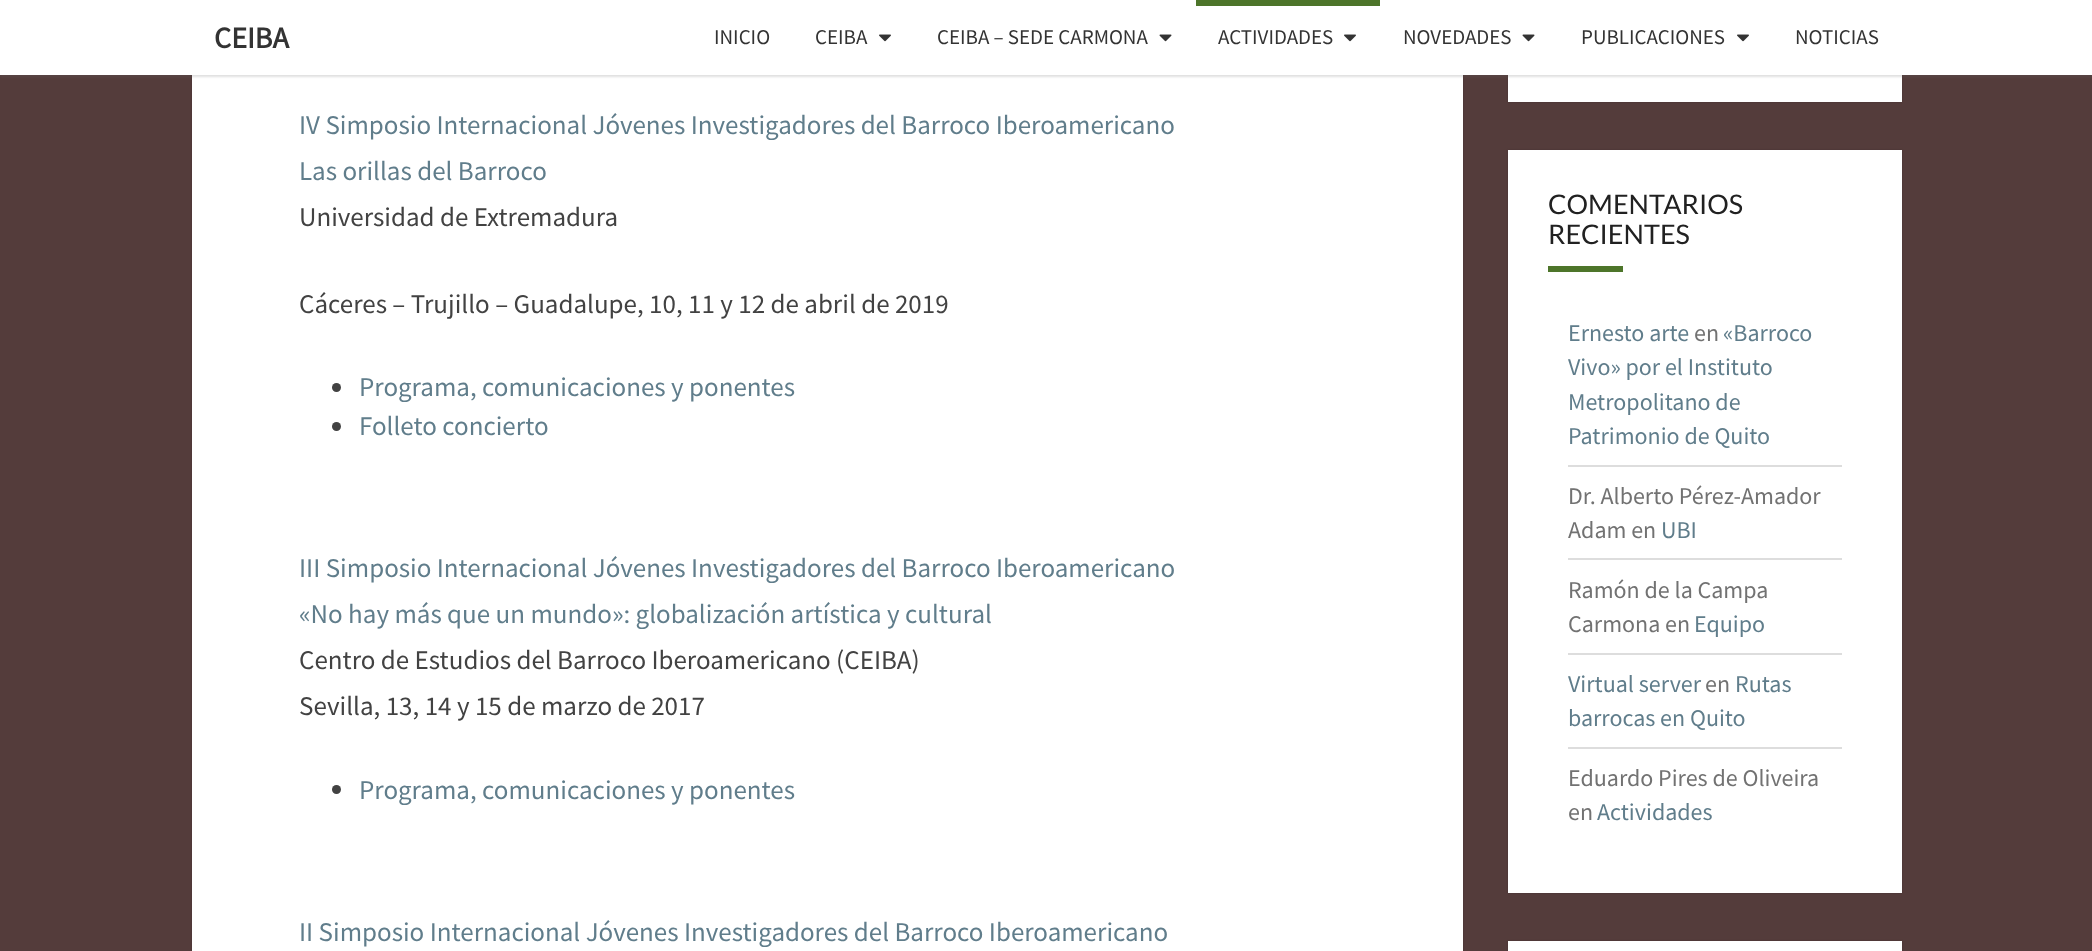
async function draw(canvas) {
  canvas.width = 2092;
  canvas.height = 951;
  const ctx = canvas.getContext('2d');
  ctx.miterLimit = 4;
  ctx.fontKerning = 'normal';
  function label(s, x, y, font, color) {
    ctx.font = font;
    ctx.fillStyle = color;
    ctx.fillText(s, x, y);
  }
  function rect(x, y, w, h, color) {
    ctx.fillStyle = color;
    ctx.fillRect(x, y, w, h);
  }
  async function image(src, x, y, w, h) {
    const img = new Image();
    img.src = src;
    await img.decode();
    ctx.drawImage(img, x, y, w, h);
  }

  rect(0, 0, 2092, 951, '#543c3b');
  ctx.fillStyle = '#00000026';
  ctx.filter = 'blur(1px)';
  ctx.beginPath();
  ctx.rect(192, -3, 1271, 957);
  ctx.fill();
  ctx.filter = 'none';
  rect(192, 75, 1271, 876, '#fff');
  ctx.fillStyle = '#00000026';
  ctx.filter = 'blur(1px)';
  ctx.beginPath();
  ctx.rect(1508, -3, 394, 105);
  ctx.fill();
  ctx.filter = 'none';
  rect(1508, 75, 394, 27, '#fff');
  ctx.fillStyle = '#64646433';
  ctx.filter = 'blur(1px)';
  ctx.beginPath();
  ctx.rect(0, 2, 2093, 75);
  ctx.fill();
  ctx.filter = 'none';
  rect(0, 0, 2092, 75, '#fff');
  label('CEIBA', 214, 48, 'bold 30px Source Sans Pro', '#333');
  label('INICIO', 714, 44, '21px Source Sans Pro', '#333');
  label('CEIBA', 815, 44, '21px Source Sans Pro', '#333');
  await image('assets/img1.png', 879, 34, 12, 8);
  label('CEIBA – SEDE CARMONA', 937, 44, '21px Source Sans Pro', '#333');
  await image('assets/img2.png', 1159, 34, 13, 8);
  rect(1196, 0, 184, 6, '#4d752a');
  label('ACTIVIDADES', 1218, 44, '21px Source Sans Pro', '#333');
  await image('assets/img1.png', 1344, 34, 12, 8);
  label('NOVEDADES', 1403, 44, '21px Source Sans Pro', '#333');
  await image('assets/img2.png', 1522, 34, 13, 8);
  label('PUBLICACIONES', 1581, 44, '21px Source Sans Pro', '#333');
  await image('assets/img1.png', 1737, 34, 12, 8);
  label('NOTICIAS', 1795, 44, '21px Source Sans Pro', '#333');
  label('IV Simposio Internacional Jóvenes Investigadores del Barroco Iberoamericano', 299, 134, '27px Source Sans Pro', '#607d8b');
  label('Las orillas del Barroco', 299, 180, '27px Source Sans Pro', '#607d8b');
  label('Universidad de Extremadura', 299, 226, '27px Source Sans Pro', '#424242');
  label('Cáceres – Trujillo – Guadalupe, 10, 11 y 12 de abril de 2019', 299, 313, '27px Source Sans Pro', '#424242');
  ctx.beginPath();
  ctx.arc(336.5, 387.5, 4.5, 0, 2 * Math.PI);
  ctx.fill();
  label('Programa, comunicaciones y ponentes', 359, 396, '27px Source Sans Pro', '#607d8b');
  ctx.fillStyle = '#424242';
  ctx.beginPath();
  ctx.arc(336.5, 426.5, 4.5, 0, 2 * Math.PI);
  ctx.fill();
  label('Folleto concierto', 359, 435, '27px Source Sans Pro', '#607d8b');
  label('III Simposio Internacional Jóvenes Investigadores del Barroco Iberoamericano', 299, 577, '27px Source Sans Pro', '#607d8b');
  label('«No hay más que un mundo»: globalización artística y cultural', 299, 623, '27px Source Sans Pro', '#607d8b');
  label('Centro de Estudios del Barroco Iberoamericano (CEIBA)', 299, 669, '27px Source Sans Pro', '#424242');
  label('Sevilla, 13, 14 y 15 de marzo de 2017', 299, 715, '27px Source Sans Pro', '#424242');
  ctx.beginPath();
  ctx.arc(336.5, 789.5, 4.5, 0, 2 * Math.PI);
  ctx.fill();
  label('Programa, comunicaciones y ponentes', 359, 799, '27px Source Sans Pro', '#607d8b');
  label('II Simposio Internacional Jóvenes Investigadores del Barroco Iberoamericano', 299, 941, '27px Source Sans Pro', '#607d8b');
  ctx.fillStyle = '#00000026';
  ctx.filter = 'blur(1px)';
  ctx.beginPath();
  ctx.rect(1508, 150, 394, 743);
  ctx.fill();
  ctx.filter = 'none';
  rect(1508, 150, 394, 743, '#fff');
  label('COMENTARIOS', 1548, 214, '27px Lato', '#212121');
  label('RECIENTES', 1548, 244, '27px Lato', '#212121');
  rect(1548, 266, 75, 6, '#4d752a');
  rect(1568, 465, 274, 2, '#ddd');
  label('Ernesto arte', 1568, 341, '24px Source Sans Pro', '#607d8b');
  label('en', 1694, 341, '24px Source Sans Pro', '#727272');
  label('«Barroco', 1723, 341, '24px Source Sans Pro', '#607d8b');
  label('Vivo» por el Instituto', 1568, 375, '24px Source Sans Pro', '#607d8b');
  label('Metropolitano de', 1568, 410, '24px Source Sans Pro', '#607d8b');
  label('Patrimonio de Quito', 1568, 444, '24px Source Sans Pro', '#607d8b');
  rect(1568, 558, 274, 2, '#ddd');
  label('Dr. Alberto Pérez-Amador', 1568, 504, '24px Source Sans Pro', '#727272');
  label('Adam en', 1568, 538, '24px Source Sans Pro', '#727272');
  label('UBI', 1661, 538, '24px Source Sans Pro', '#607d8b');
  rect(1568, 653, 274, 2, '#ddd');
  label('Ramón de la Campa', 1568, 598, '24px Source Sans Pro', '#727272');
  label('Carmona en', 1568, 632, '24px Source Sans Pro', '#727272');
  label('Equipo', 1694, 632, '24px Source Sans Pro', '#607d8b');
  rect(1568, 747, 274, 2, '#ddd');
  label('Virtual server', 1568, 692, '24px Source Sans Pro', '#607d8b');
  label('en', 1705, 692, '24px Source Sans Pro', '#727272');
  label('Rutas', 1735, 692, '24px Source Sans Pro', '#607d8b');
  label('barrocas en Quito', 1568, 726, '24px Source Sans Pro', '#607d8b');
  label('Eduardo Pires de Oliveira', 1568, 786, '24px Source Sans Pro', '#727272');
  label('en', 1568, 820, '24px Source Sans Pro', '#727272');
  label('Actividades', 1597, 820, '24px Source Sans Pro', '#607d8b');
  ctx.fillStyle = '#00000026';
  ctx.filter = 'blur(1px)';
  ctx.beginPath();
  ctx.rect(1508, 941, 394, 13);
  ctx.fill();
  ctx.filter = 'none';
  rect(1508, 941, 394, 10, '#fff');
}

draw(document.querySelector('canvas'));
